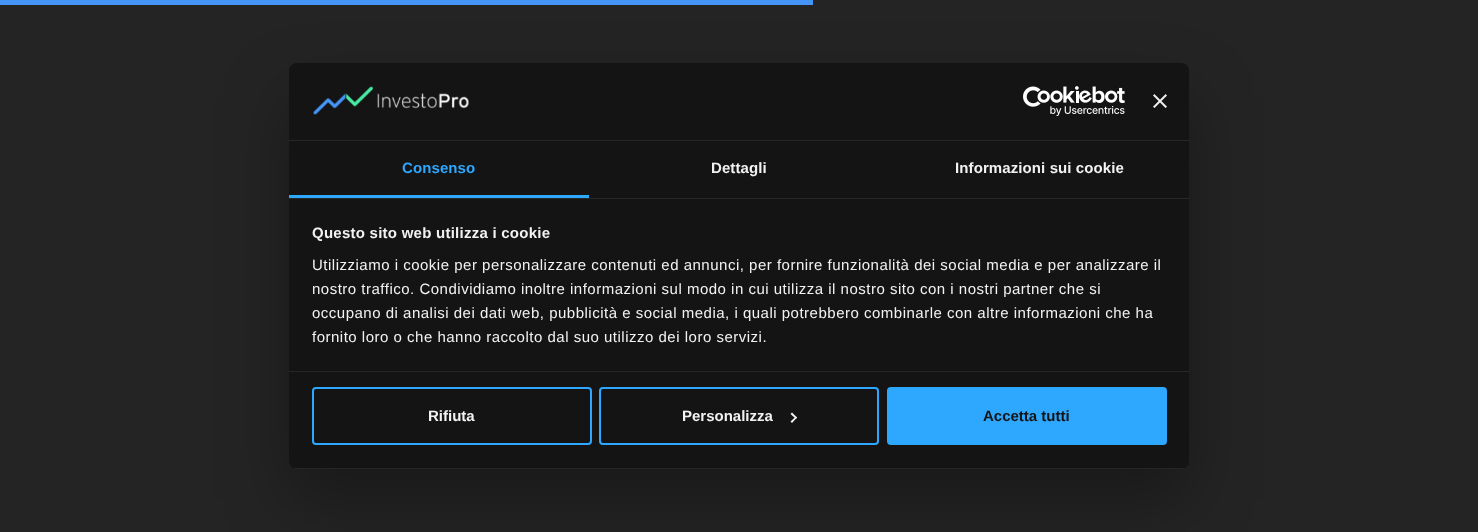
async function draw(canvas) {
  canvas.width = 1478;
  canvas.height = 532;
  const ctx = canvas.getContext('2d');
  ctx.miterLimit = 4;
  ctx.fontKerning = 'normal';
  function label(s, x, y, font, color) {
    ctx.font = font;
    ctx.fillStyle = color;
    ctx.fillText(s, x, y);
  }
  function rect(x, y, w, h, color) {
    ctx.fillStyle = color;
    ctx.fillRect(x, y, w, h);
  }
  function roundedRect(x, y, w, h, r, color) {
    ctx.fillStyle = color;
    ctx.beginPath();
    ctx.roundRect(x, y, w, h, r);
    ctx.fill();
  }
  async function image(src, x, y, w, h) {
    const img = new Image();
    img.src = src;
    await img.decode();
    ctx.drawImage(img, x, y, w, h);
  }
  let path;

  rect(0, 0, 1478, 532, '#242424');
  rect(0, 0, 813, 5, '#4595f7');
  ctx.fillStyle = '#0000004d';
  ctx.filter = 'blur(34px)';
  ctx.beginPath();
  ctx.roundRect(289, 95, 900, 406, 8);
  ctx.fill();
  ctx.filter = 'none';
  roundedRect(289, 63, 900, 406, 8, '#141414');
  rect(289, 140, 900, 1, '#272727');
  await image('assets/img1.png', 313, 86, 156, 29);
  await image('assets/img2.png', 1023, 86, 102, 30);
  await image('assets/img3.png', 1153, 94, 14, 14);
  rect(289, 198, 900, 1, '#272727');
  rect(289, 195, 300, 3, '#2ea7ff');
  ctx.letterSpacing = '0.1px';
  label('Consenso', 402, 173, 'bold 15px Liberation Sans', '#2ea7ff');
  label('Dettagli', 711, 173, 'bold 15px Liberation Sans', '#f2f2f2');
  label('Informazioni sui cookie', 955, 173, 'bold 15px Liberation Sans', '#f2f2f2');
  rect(289, 371, 900, 1, '#272727');
  ctx.letterSpacing = '0.25px';
  label('Questo sito web utilizza i cookie', 312, 238, 'bold 15px Liberation Sans', '#f2f2f2');
  ctx.letterSpacing = '0.5px';
  label('Utilizziamo i cookie per personalizzare contenuti ed annunci, per fornire funzionalità dei social media e per analizzare il', 312, 270, '15px Liberation Sans', '#f2f2f2');
  label('nostro traffico. Condividiamo inoltre informazioni sul modo in cui utilizza il nostro sito con i nostri partner che si', 312, 294, '15px Liberation Sans', '#f2f2f2');
  label('occupano di analisi dei dati web, pubblicità e social media, i quali potrebbero combinarle con altre informazioni che ha', 312, 318, '15px Liberation Sans', '#f2f2f2');
  label('fornito loro o che hanno raccolto dal suo utilizzo dei loro servizi.', 312, 342, '15px Liberation Sans', '#f2f2f2');
  ctx.save();
  ctx.beginPath();
  ctx.roundRect(289, 63, 900, 406, 8);
  ctx.clip();
  rect(289, 468, 900, 1, '#ffffff14');
  ctx.restore();
  ctx.beginPath();
  ctx.roundRect(313, 388, 278, 56, 3);
  ctx.strokeStyle = '#2ea7ff';
  ctx.lineWidth = 2;
  ctx.stroke();
  ctx.letterSpacing = '0px';
  label('Rifiuta', 428, 421, 'bold 15px Liberation Sans', '#f2f2f2');
  ctx.beginPath();
  ctx.roundRect(600, 388, 278, 56, 3);
  ctx.stroke();
  label('Personalizza', 682, 421, 'bold 15px Liberation Sans', '#f2f2f2');
  path = new Path2D('M792 412.5L797 417.5L796 419L790.5 414Z');
  ctx.fill(path);
  path = new Path2D('M796 416.5L797 417.5L792 423L790.5 421.5Z');
  ctx.fill(path);
  ctx.fillStyle = '#2ea7ff';
  ctx.beginPath();
  ctx.roundRect(888, 388, 278, 56, 3);
  ctx.fill();
  ctx.stroke();
  label('Accetta tutti', 983, 421, 'bold 15px Liberation Sans', '#141414');
}

draw(document.querySelector('canvas'));
